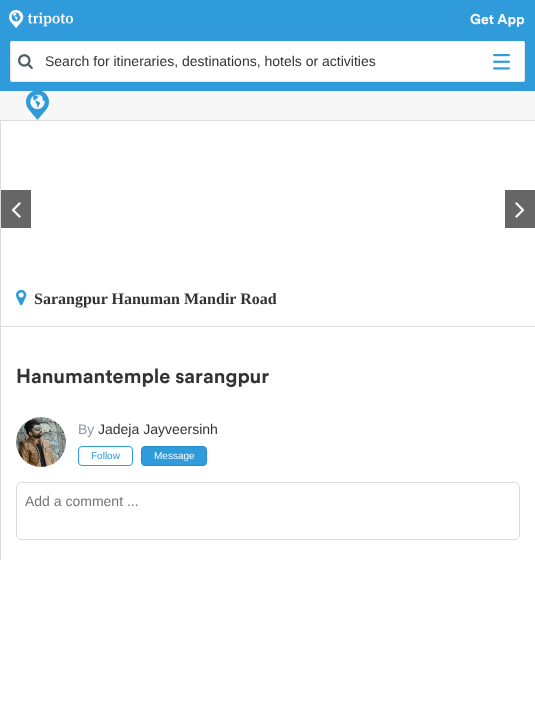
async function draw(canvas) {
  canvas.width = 535;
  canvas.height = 710;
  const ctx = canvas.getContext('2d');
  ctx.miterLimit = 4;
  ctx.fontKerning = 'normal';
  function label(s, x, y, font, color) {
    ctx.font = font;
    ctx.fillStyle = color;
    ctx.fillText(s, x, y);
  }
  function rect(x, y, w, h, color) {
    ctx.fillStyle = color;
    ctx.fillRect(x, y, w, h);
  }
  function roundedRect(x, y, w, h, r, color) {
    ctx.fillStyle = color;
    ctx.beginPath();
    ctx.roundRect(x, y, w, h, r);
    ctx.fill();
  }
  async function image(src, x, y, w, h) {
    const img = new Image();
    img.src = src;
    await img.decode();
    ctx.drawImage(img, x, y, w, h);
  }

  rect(0, 0, 535, 710, '#fff');
  rect(0, 0, 535, 91, '#2f9bdb');
  await image('assets/img1.png', 9, 10, 64, 18);
  label('Get App', 470, 24, 'bold 14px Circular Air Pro', '#fff');
  roundedRect(10, 41, 515, 41, 2, '#fff');
  await image('assets/img2.png', 18, 54, 15, 15);
  rect(524, 42, 1, 39, '#00000017');
  rect(11, 81, 513, 1, '#00000017');
  rect(10, 42, 1, 39, '#00000017');
  label('Search for itineraries, destinations, hotels or activities', 45, 66, '14px Liberation Sans', '#333');
  await image('assets/img3.png', 493, 54, 17, 16);
  rect(0, 91, 535, 29, '#f7f7f7');
  rect(0, 120, 535, 1, '#ddd');
  await image('assets/img4.png', 26, 91, 23, 29);
  rect(0, 121, 1, 439, '#ddd');
  rect(1, 190, 30, 38, '#666');
  await image('assets/img5.png', 11, 202, 10, 16);
  rect(505, 190, 30, 38, '#666');
  await image('assets/img6.png', 515, 202, 10, 16);
  rect(1, 326, 534, 1, '#ddd');
  await image('assets/img7.png', 16, 289, 11, 17);
  label('Sarangpur Hanuman Mandir Road', 34, 304, 'bold 16px Liberation Serif', '#333');
  label('Hanumantemple sarangpur', 16, 383, 'bold 20px Circular Air Pro', '#333');
  await image('assets/img8.png', 16, 417, 50, 50);
  label('By', 78, 434, '14px Liberation Sans', '#9197a3');
  label('Jadeja Jayveersinh', 98, 434, '14px Liberation Sans', '#333');
  ctx.beginPath();
  ctx.roundRect(78.5, 446.5, 54, 19, 3.5);
  ctx.strokeStyle = '#2f9bdb';
  ctx.stroke();
  label('Follow', 91, 459, '10px Liberation Sans', '#2f9bdb');
  ctx.beginPath();
  ctx.roundRect(141.5, 446.5, 65, 19, 3.5);
  ctx.fill();
  ctx.strokeStyle = '#238ecd';
  ctx.stroke();
  label('Message', 154, 459, '10px Liberation Sans', '#fff');
  ctx.beginPath();
  ctx.roundRect(16.5, 482.5, 503, 57, 4.5);
  ctx.strokeStyle = '#ddd';
  ctx.stroke();
  label('Add a comment ...', 25, 506, '14px Liberation Sans', '#757575');
}

draw(document.querySelector('canvas'));
